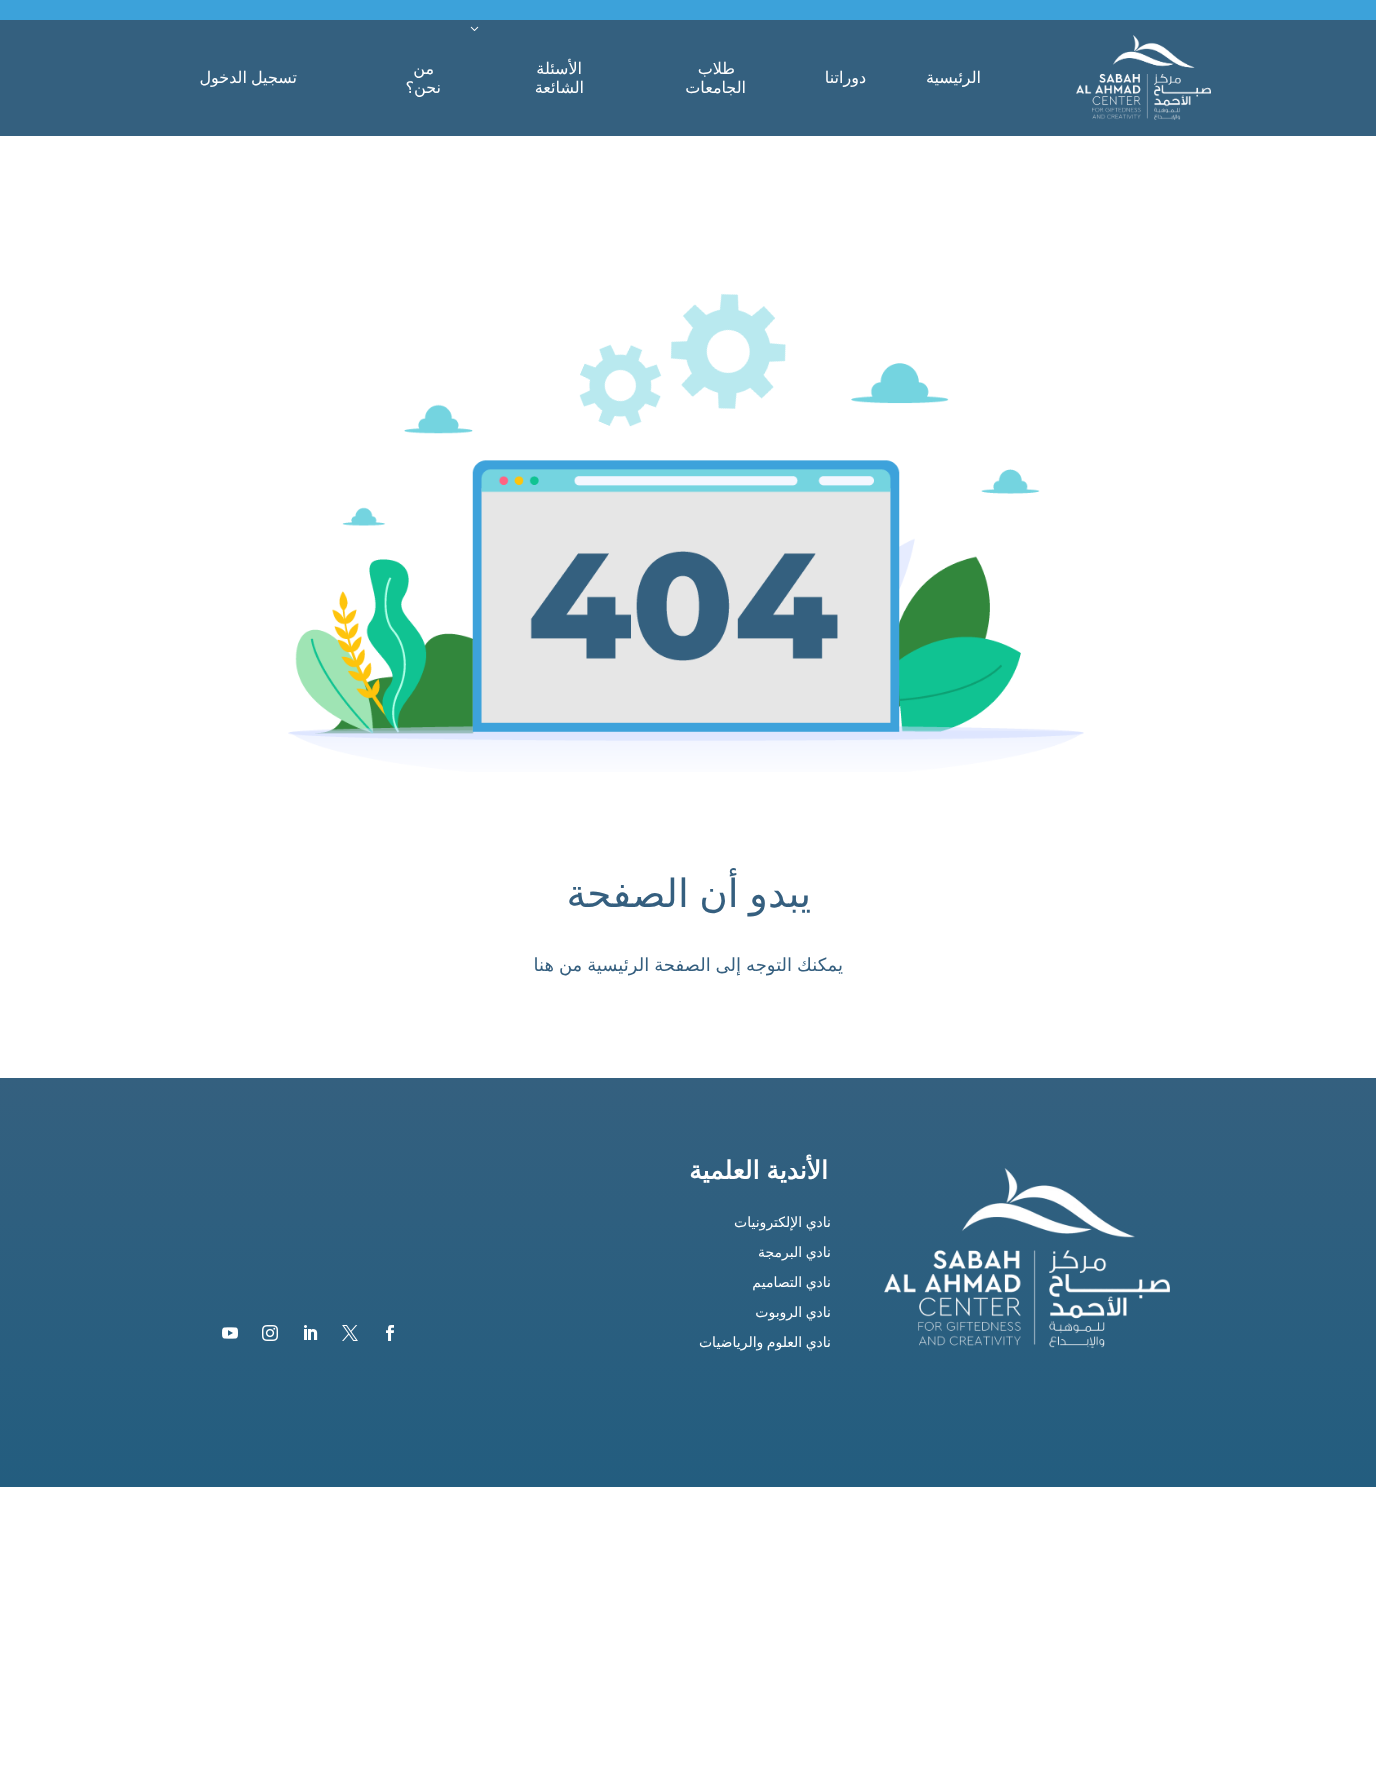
async function draw(canvas) {
  canvas.width = 1376;
  canvas.height = 1781;
  const ctx = canvas.getContext('2d');
  ctx.miterLimit = 4;
  ctx.fontKerning = 'normal';
  function label(s, x, y, font, color) {
    ctx.font = font;
    ctx.fillStyle = color;
    ctx.fillText(s, x, y);
  }
  function rect(x, y, w, h, color) {
    ctx.fillStyle = color;
    ctx.fillRect(x, y, w, h);
  }
  async function image(src, x, y, w, h) {
    const img = new Image();
    img.src = src;
    await img.decode();
    ctx.drawImage(img, x, y, w, h);
  }
  let gradient;

  rect(0, 0, 1376, 1781, '#fff');
  rect(0, 0, 1376, 20, '#3ca2da');
  rect(0, 20, 1376, 116, '#34607f');
  await image('assets/img1.png', 1076, 35, 135, 85);
  ctx.direction = 'rtl';
  label('الرئيسية', 981, 83, '16px DejaVu Sans', '#fff');
  label('دوراتنا', 866, 83, '16px DejaVu Sans', '#fff');
  label('طلاب', 735, 74, '16px DejaVu Sans', '#fff');
  label('الجامعات', 746, 93, '16px DejaVu Sans', '#fff');
  label('الأسئلة', 582, 74, '16px DejaVu Sans', '#fff');
  label('الشائعة', 584, 93, '16px DejaVu Sans', '#fff');
  await image('assets/img2.png', 470, 26, 9, 5);
  label('من', 434, 74, '16px DejaVu Sans', '#fff');
  label('نحن؟', 441, 93, '16px DejaVu Sans', '#fff');
  ctx.wordSpacing = '-1px';
  label('تسجيل الدخول', 297, 83, '16px DejaVu Sans', '#fff');
  await image('assets/img3.png', 288, 293, 796, 479);
  ctx.wordSpacing = '-2px';
  label('يبدو أن الصفحة', 811, 907, '39px DejaVu Sans', '#355f7f');
  ctx.wordSpacing = '-0.75px';
  label('يمكنك التوجه إلى الصفحة الرئيسية من هنا', 843, 971, '18px DejaVu Sans', '#355f7f');
  gradient = ctx.createLinearGradient(688, 1078, 688, 1487);
  gradient.addColorStop(0, '#34607f');
  gradient.addColorStop(1, '#235d7f');
  ctx.fillStyle = gradient;
  ctx.fillRect(0, 1078, 1376, 409);
  await image('assets/img4.png', 884, 1168, 286, 180);
  ctx.wordSpacing = '-1px';
  label('الأندية العلمية', 828, 1179, 'bold 25px DejaVu Sans', '#fff');
  label('نادي الإلكترونيات', 831, 1227, '14px DejaVu Sans', '#fff');
  label('نادي البرمجة', 831, 1257, '14px DejaVu Sans', '#fff');
  label('نادي التصاميم', 831, 1287, '14px DejaVu Sans', '#fff');
  label('نادي الروبوت', 831, 1317, '14px DejaVu Sans', '#fff');
  label('نادي العلوم والرياضيات', 831, 1347, '14px DejaVu Sans', '#fff');
  await image('assets/img5.png', 386, 1325, 8, 16);
  await image('assets/img6.png', 342, 1325, 16, 16);
  await image('assets/img7.png', 304, 1325, 14, 15);
  await image('assets/img8.png', 262, 1325, 16, 16);
  await image('assets/img9.png', 222, 1327, 16, 12);
}

draw(document.querySelector('canvas'));
